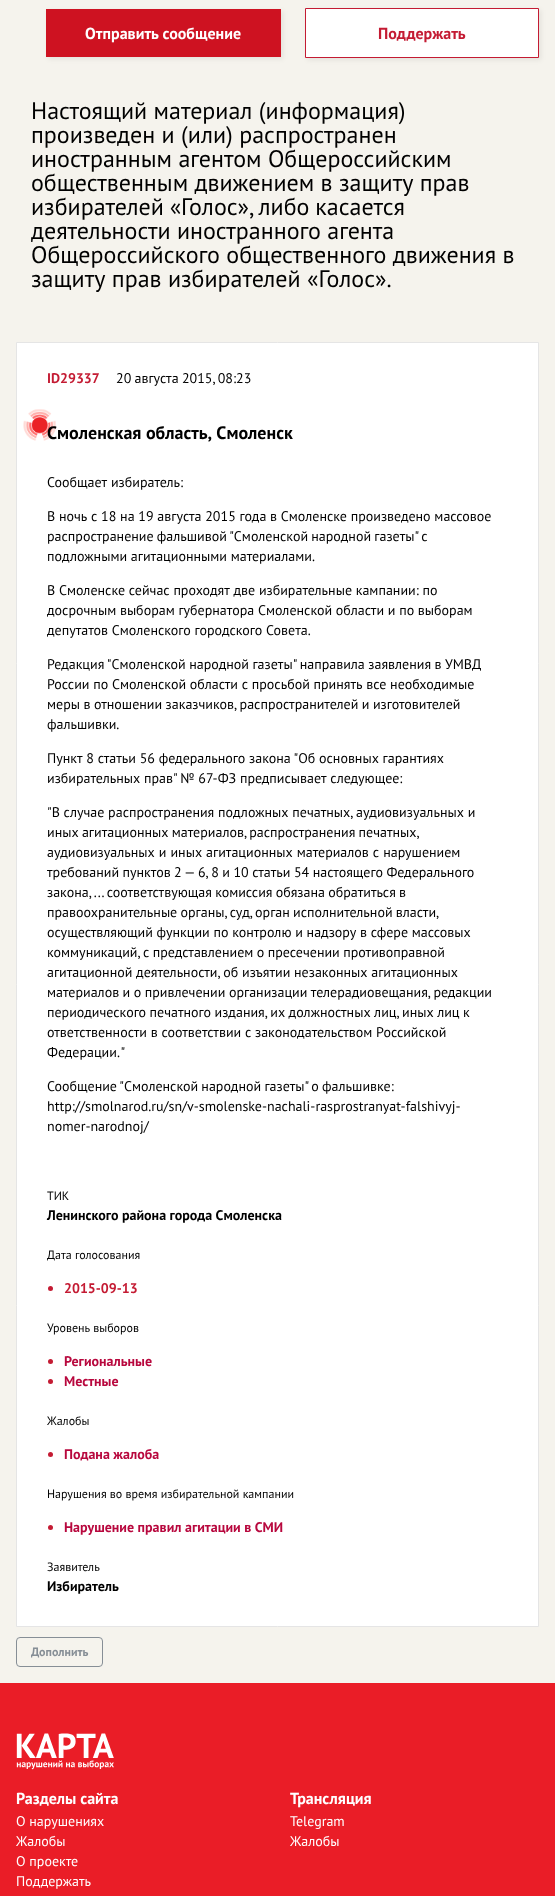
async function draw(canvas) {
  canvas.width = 555;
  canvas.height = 1896;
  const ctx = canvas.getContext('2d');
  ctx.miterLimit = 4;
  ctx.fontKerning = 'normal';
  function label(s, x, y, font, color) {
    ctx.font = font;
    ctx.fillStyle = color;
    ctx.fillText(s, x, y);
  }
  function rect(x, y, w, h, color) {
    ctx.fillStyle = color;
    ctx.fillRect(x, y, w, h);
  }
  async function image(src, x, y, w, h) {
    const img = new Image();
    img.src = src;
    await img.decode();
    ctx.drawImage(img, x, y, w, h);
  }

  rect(0, 0, 555, 1896, '#f5f3ed');
  ctx.fillStyle = '#00000012';
  ctx.filter = 'blur(2.5px)';
  ctx.beginPath();
  ctx.rect(48, 11, 235, 48);
  ctx.fill();
  ctx.filter = 'none';
  rect(46, 9, 235, 48, '#ce1221');
  label('Отправить сообщение', 85, 39, 'bold 16px PT Sans', '#fff');
  ctx.fillStyle = '#00000012';
  ctx.filter = 'blur(2.5px)';
  ctx.beginPath();
  ctx.rect(307, 10, 234, 50);
  ctx.fill();
  ctx.filter = 'none';
  ctx.fillStyle = '#fff';
  ctx.beginPath();
  ctx.rect(305.5, 8.5, 233, 49);
  ctx.fill();
  ctx.strokeStyle = '#c41b33';
  ctx.stroke();
  label('Поддержать', 378, 39, 'bold 16px PT Sans', '#c41b33');
  label('Настоящий материал (информация)', 31, 119, '24px PT Sans', '#000');
  label('произведен и (или) распространен', 31, 143, '24px PT Sans', '#000');
  label('иностранным агентом Общероссийским', 31, 167, '24px PT Sans', '#000');
  label('общественным движением в защиту прав', 31, 191, '24px PT Sans', '#000');
  ctx.wordSpacing = '-0.5px';
  label('избирателей «Голос», либо касается', 31, 215, '24px PT Sans', '#000');
  ctx.wordSpacing = '0px';
  label('деятельности иностранного агента', 31, 239, '24px PT Sans', '#000');
  label('Общероссийского общественного движения в', 31, 263, '24px PT Sans', '#000');
  label('защиту прав избирателей «Голос».', 31, 287, '24px PT Sans', '#000');
  ctx.fillStyle = '#fff';
  ctx.beginPath();
  ctx.rect(16.5, 342.5, 522, 1284);
  ctx.fill();
  ctx.strokeStyle = '#e5e5e5';
  ctx.stroke();
  label('ID29337', 47, 383, 'bold 14px PT Sans', '#c41b33');
  ctx.wordSpacing = '-0.5px';
  label('20 августа 2015, 08:23', 116, 383, '14px PT Sans', '#000');
  await image('assets/img1.png', 23, 409, 33, 32);
  ctx.wordSpacing = '0px';
  label('Смоленская область, Смоленск', 47, 439, 'bold 18px PT Sans', '#000');
  label('Сообщает избиратель:', 47, 487, '14px PT Sans', '#000');
  label('В ночь с 18 на 19 августа 2015 года в Смоленске произведено массовое', 47, 521, '14px PT Sans', '#000');
  ctx.wordSpacing = '-0.5px';
  label('распространение фальшивой "Смоленской народной газеты" с', 47, 541, '14px PT Sans', '#000');
  ctx.wordSpacing = '0px';
  label('подложными агитационными материалами.', 47, 561, '14px PT Sans', '#000');
  label('В Смоленске сейчас проходят две избирательные кампании: по', 47, 595, '14px PT Sans', '#000');
  label('досрочным выборам губернатора Смоленской области и по выборам', 47, 615, '14px PT Sans', '#000');
  label('депутатов Смоленского городского Совета.', 47, 635, '14px PT Sans', '#000');
  ctx.wordSpacing = '-0.25px';
  label('Редакция "Смоленской народной газеты" направила заявления в УМВД', 47, 669, '14px PT Sans', '#000');
  ctx.wordSpacing = '0px';
  label('России по Смоленской области с просьбой принять все необходимые', 47, 689, '14px PT Sans', '#000');
  ctx.wordSpacing = '-0.25px';
  label('меры в отношении заказчиков, распространителей и изготовителей', 47, 709, '14px PT Sans', '#000');
  ctx.wordSpacing = '0px';
  label('фальшивки.', 47, 729, '14px PT Sans', '#000');
  label('Пункт 8 статьи 56 федерального закона "Об основных гарантиях', 47, 763, '14px PT Sans', '#000');
  label('избирательных прав" № 67-ФЗ предписывает следующее:', 47, 783, '14px PT Sans', '#000');
  label('"В случае распространения подложных печатных, аудиовизуальных и', 47, 817, '14px PT Sans', '#000');
  ctx.wordSpacing = '-0.5px';
  label('иных агитационных материалов, распространения печатных,', 47, 837, '14px PT Sans', '#000');
  ctx.wordSpacing = '0.25px';
  label('аудиовизуальных и иных агитационных материалов с нарушением', 47, 857, '14px PT Sans', '#000');
  ctx.wordSpacing = '-0.25px';
  label('требований пунктов 2 — 6, 8 и 10 статьи 54 настоящего Федерального', 47, 877, '14px PT Sans', '#000');
  ctx.wordSpacing = '-0.5px';
  label('закона, ... соответствующая комиссия обязана обратиться в', 47, 897, '14px PT Sans', '#000');
  label('правоохранительные органы, суд, орган исполнительной власти,', 47, 917, '14px PT Sans', '#000');
  ctx.wordSpacing = '0px';
  label('осуществляющий функции по контролю и надзору в сфере массовых', 47, 937, '14px PT Sans', '#000');
  ctx.wordSpacing = '-0.25px';
  label('коммуникаций, с представлением о пресечении противоправной', 47, 957, '14px PT Sans', '#000');
  ctx.wordSpacing = '0px';
  label('агитационной деятельности, об изъятии незаконных агитационных', 47, 977, '14px PT Sans', '#000');
  ctx.wordSpacing = '-0.25px';
  label('материалов и о привлечении организации телерадиовещания, редакции', 47, 997, '14px PT Sans', '#000');
  label('периодического печатного издания, их должностных лиц, иных лиц к', 47, 1017, '14px PT Sans', '#000');
  ctx.wordSpacing = '0px';
  label('ответственности в соответствии с законодательством Российской', 47, 1037, '14px PT Sans', '#000');
  ctx.wordSpacing = '-1px';
  label('Федерации. "', 47, 1057, '14px PT Sans', '#000');
  ctx.wordSpacing = '-0.5px';
  label('Сообщение "Смоленской народной газеты" о фальшивке:', 47, 1091, '14px PT Sans', '#000');
  ctx.wordSpacing = '0px';
  label('http://smolnarod.ru/sn/v-smolenske-nachali-rasprostranyat-falshivyj-', 47, 1111, '14px PT Sans', '#000');
  label('nomer-narodnoj/', 47, 1131, '14px PT Sans', '#000');
  label('ТИК', 47, 1200, '12px PT Sans', '#000');
  label('Ленинского района города Смоленска', 47, 1220, 'bold 14px PT Sans', '#000');
  label('Дата голосования', 47, 1259, '12px PT Sans', '#000');
  ctx.fillStyle = '#c41b33';
  ctx.beginPath();
  ctx.arc(50.5, 1288.5, 2.5, 0, 2 * Math.PI);
  ctx.fill();
  label('2015-09-13', 64, 1293, 'bold 14px PT Sans', '#c41b33');
  label('Уровень выборов', 47, 1332, '12px PT Sans', '#000');
  ctx.fillStyle = '#c41b33';
  ctx.beginPath();
  ctx.arc(50.5, 1361.5, 2.5, 0, 2 * Math.PI);
  ctx.fill();
  label('Региональные', 64, 1366, 'bold 14px PT Sans', '#b8083e');
  ctx.fillStyle = '#c41b33';
  ctx.beginPath();
  ctx.arc(50.5, 1381.5, 2.5, 0, 2 * Math.PI);
  ctx.fill();
  label('Местные', 64, 1386, 'bold 14px PT Sans', '#b8083e');
  label('Жалобы', 47, 1425, '12px PT Sans', '#000');
  ctx.fillStyle = '#c41b33';
  ctx.beginPath();
  ctx.arc(50.5, 1454.5, 2.5, 0, 2 * Math.PI);
  ctx.fill();
  label('Подана жалоба', 64, 1459, 'bold 14px PT Sans', '#b8083e');
  label('Нарушения во время избирательной кампании', 47, 1498, '12px PT Sans', '#000');
  ctx.fillStyle = '#c41b33';
  ctx.beginPath();
  ctx.arc(50.5, 1527.5, 2.5, 0, 2 * Math.PI);
  ctx.fill();
  label('Нарушение правил агитации в СМИ', 64, 1532, 'bold 14px PT Sans', '#b8083e');
  label('Заявитель', 47, 1571, '12px PT Sans', '#000');
  label('Избиратель', 47, 1591, 'bold 14px PT Sans', '#000');
  ctx.beginPath();
  ctx.roundRect(16.5, 1637.5, 86, 29, 3.5);
  ctx.strokeStyle = '#868e96';
  ctx.stroke();
  label('Дополнить', 31, 1656, 'bold 12px PT Sans', '#868e96');
  rect(0, 1683, 555, 213, '#ea1d27');
  await image('assets/img2.png', 16, 1733, 98, 37);
  label('Разделы сайта', 16, 1804, 'bold 16px PT Sans', '#fff');
  label('О нарушениях', 16, 1826, '14px PT Sans', '#fff');
  label('Жалобы', 16, 1846, '14px PT Sans', '#fff');
  label('О проекте', 16, 1866, '14px PT Sans', '#fff');
  label('Поддержать', 16, 1886, '14px PT Sans', '#fff');
  label('Трансляция', 290, 1804, 'bold 16px PT Sans', '#fff');
  label('Telegram', 290, 1826, '14px PT Sans', '#fff');
  label('Жалобы', 290, 1846, '14px PT Sans', '#fff');
}

draw(document.querySelector('canvas'));
